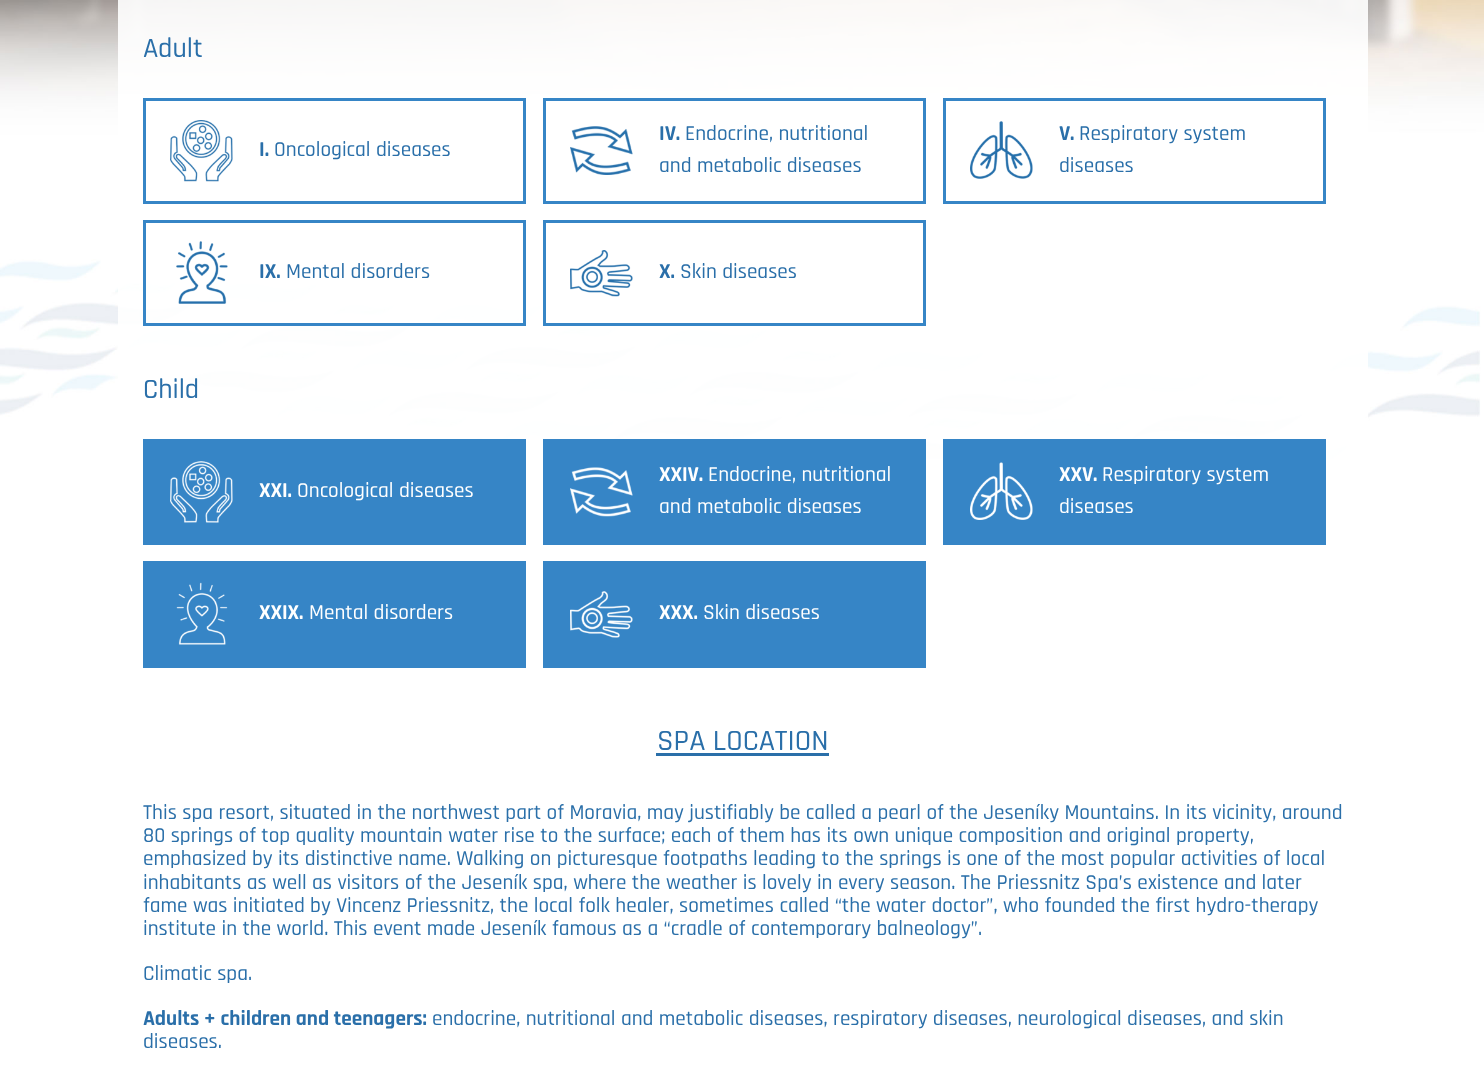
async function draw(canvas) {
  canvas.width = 1484;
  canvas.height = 1072;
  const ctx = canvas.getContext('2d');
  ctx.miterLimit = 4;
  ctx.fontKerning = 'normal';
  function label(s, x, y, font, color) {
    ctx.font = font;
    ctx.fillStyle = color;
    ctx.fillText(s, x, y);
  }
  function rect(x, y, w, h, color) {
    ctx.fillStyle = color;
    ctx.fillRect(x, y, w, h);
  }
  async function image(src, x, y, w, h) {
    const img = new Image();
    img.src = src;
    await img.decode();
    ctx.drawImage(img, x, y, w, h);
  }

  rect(0, 0, 1484, 1072, '#fff');
  await image('assets/img1.png', 0, 0, 1484, 459);
  rect(118, 0, 1250, 459, '#ffffffe6');
  label('Adult', 143, 57, '500 28px Rajdhani', '#2a6fa9');
  ctx.strokeStyle = '#3685c6';
  ctx.lineWidth = 3;
  ctx.strokeRect(144.5, 99.5, 380, 103);
  await image('assets/img2.png', 170, 120, 63, 62);
  label('I.', 259, 156, 'bold 21.25px Rajdhani', '#2a6fa9');
  label('Oncological diseases', 274, 156, '500 21.25px Rajdhani', '#2a6fa9');
  ctx.strokeRect(544.5, 99.5, 380, 103);
  await image('assets/img3.png', 570, 126, 63, 49);
  label('IV.', 659, 140, 'bold 21.25px Rajdhani', '#2a6fa9');
  label('Endocrine, nutritional', 685, 140, '500 21.25px Rajdhani', '#2a6fa9');
  label('and metabolic diseases', 659, 172, '500 21.25px Rajdhani', '#2a6fa9');
  ctx.strokeRect(944.5, 99.5, 380, 103);
  await image('assets/img4.png', 970, 121, 63, 58);
  label('V.', 1059, 140, 'bold 21.25px Rajdhani', '#2a6fa9');
  label('Respiratory system', 1079, 140, '500 21.25px Rajdhani', '#2a6fa9');
  label('diseases', 1059, 172, '500 21.25px Rajdhani', '#2a6fa9');
  ctx.strokeRect(144.5, 221.5, 380, 103);
  await image('assets/img5.png', 176, 241, 52, 63);
  label('IX.', 259, 278, 'bold 21.25px Rajdhani', '#2a6fa9');
  label('Mental disorders', 286, 278, '500 21.25px Rajdhani', '#2a6fa9');
  ctx.strokeRect(544.5, 221.5, 380, 103);
  await image('assets/img6.png', 570, 250, 63, 47);
  label('X.', 659, 278, 'bold 21.25px Rajdhani', '#2a6fa9');
  label('Skin diseases', 680, 278, '500 21.25px Rajdhani', '#2a6fa9');
  label('Child', 143, 398, '500 28px Rajdhani', '#2a6fa9');
  rect(143, 439, 383, 106, '#3685c6');
  await image('assets/img7.png', 170, 461, 63, 62);
  label('XXI.', 259, 497, 'bold 21.25px Rajdhani', '#fff');
  label('Oncological diseases', 297, 497, '500 21.25px Rajdhani', '#fff');
  rect(543, 439, 383, 106, '#3685c6');
  await image('assets/img8.png', 570, 467, 63, 50);
  label('XXIV.', 659, 481, 'bold 21.25px Rajdhani', '#fff');
  label('Endocrine, nutritional', 708, 481, '500 21.25px Rajdhani', '#fff');
  label('and metabolic diseases', 659, 513, '500 21.25px Rajdhani', '#fff');
  rect(943, 439, 383, 106, '#3685c6');
  await image('assets/img9.png', 970, 462, 63, 58);
  label('XXV.', 1059, 481, 'bold 21.25px Rajdhani', '#fff');
  label('Respiratory system', 1102, 481, '500 21.25px Rajdhani', '#fff');
  label('diseases', 1059, 513, '500 21.25px Rajdhani', '#fff');
  rect(143, 561, 383, 107, '#3685c6');
  await image('assets/img10.png', 176, 582, 52, 63);
  label('XXIX.', 259, 619, 'bold 21.25px Rajdhani', '#fff');
  label('Mental disorders', 309, 619, '500 21.25px Rajdhani', '#fff');
  rect(543, 561, 383, 107, '#3685c6');
  await image('assets/img11.png', 570, 591, 63, 47);
  label('XXX.', 659, 619, 'bold 21.25px Rajdhani', '#fff');
  label('Skin diseases', 703, 619, '500 21.25px Rajdhani', '#fff');
  label('SPA LOCATION', 657, 750, '500 29.75px Rajdhani', '#2a6fa9');
  rect(656, 753, 173, 3, '#2a6fa9');
  label('This spa resort, situated in the northwest part of Moravia, may justifiably be called a pearl of the Jeseníky Mountains. In its vicinity, around', 143, 819, '500 21.25px Rajdhani', '#2a6fa9');
  label('80 springs of top quality mountain water rise to the surface; each of them has its own unique composition and original property,', 143, 842, '500 21.25px Rajdhani', '#2a6fa9');
  label('emphasized by its distinctive name. Walking on picturesque footpaths leading to the springs is one of the most popular activities of local', 143, 865, '500 21.25px Rajdhani', '#2a6fa9');
  label('inhabitants as well as visitors of the Jeseník spa, where the weather is lovely in every season. The Priessnitz Spa’s existence and later', 143, 889, '500 21.25px Rajdhani', '#2a6fa9');
  label('fame was initiated by Vincenz Priessnitz, the local folk healer, sometimes called “the water doctor”, who founded the first hydro-therapy', 143, 912, '500 21.25px Rajdhani', '#2a6fa9');
  label('institute in the world. This event made Jeseník famous as a “cradle of contemporary balneology”.', 143, 935, '500 21.25px Rajdhani', '#2a6fa9');
  label('Climatic spa.', 143, 980, '500 21.25px Rajdhani', '#2a6fa9');
  label('Adults + children and teenagers:', 143, 1025, 'bold 21.25px Rajdhani', '#2a6fa9');
  label('endocrine, nutritional and metabolic diseases, respiratory diseases, neurological diseases, and skin', 432, 1025, '500 21.25px Rajdhani', '#2a6fa9');
  label('diseases.', 143, 1048, '500 21.25px Rajdhani', '#2a6fa9');
}

draw(document.querySelector('canvas'));
